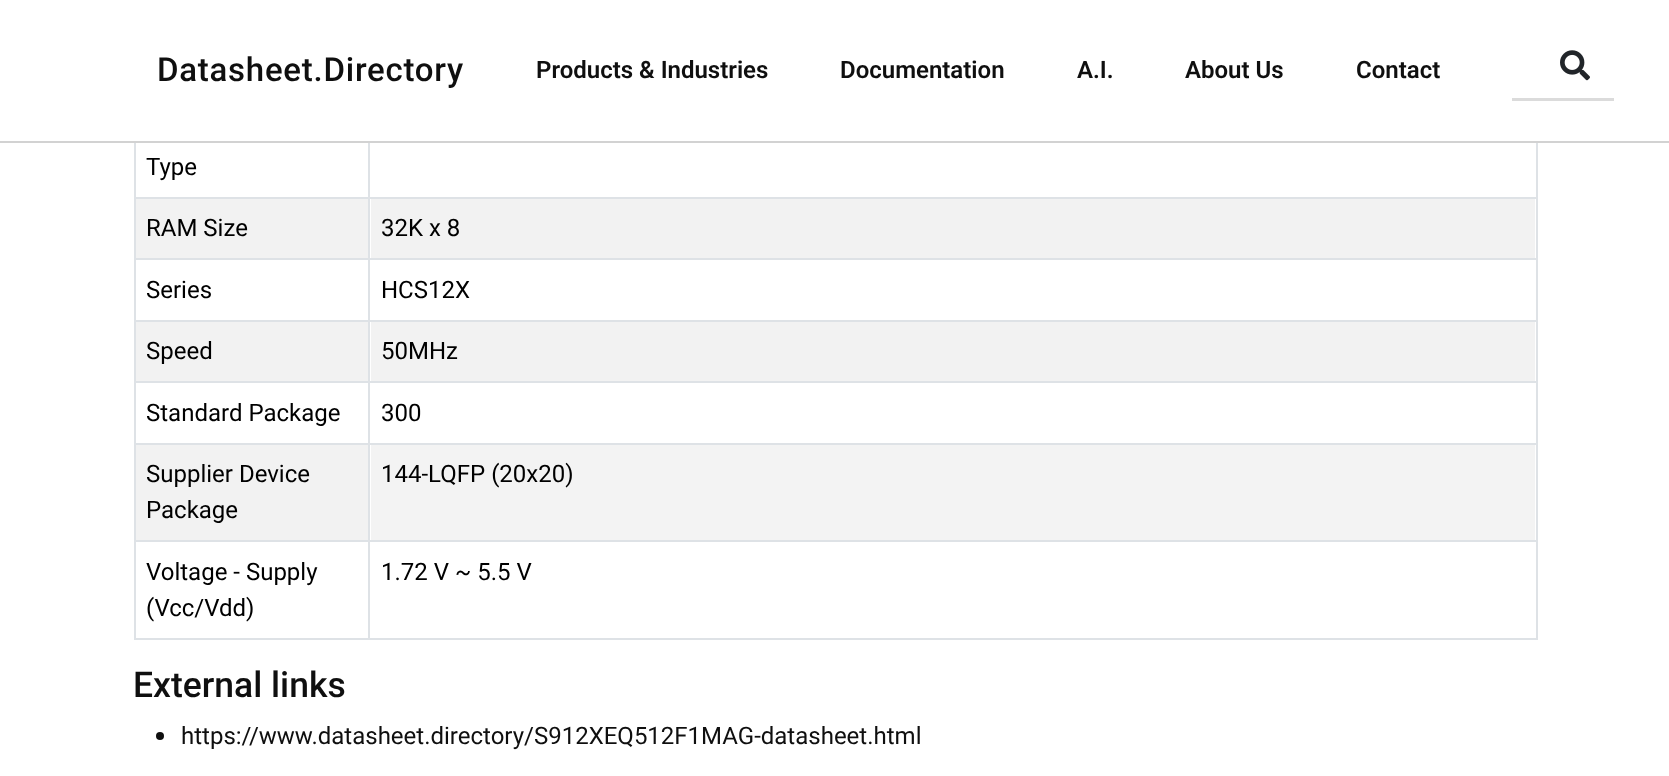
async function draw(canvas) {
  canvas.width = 1669;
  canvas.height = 776;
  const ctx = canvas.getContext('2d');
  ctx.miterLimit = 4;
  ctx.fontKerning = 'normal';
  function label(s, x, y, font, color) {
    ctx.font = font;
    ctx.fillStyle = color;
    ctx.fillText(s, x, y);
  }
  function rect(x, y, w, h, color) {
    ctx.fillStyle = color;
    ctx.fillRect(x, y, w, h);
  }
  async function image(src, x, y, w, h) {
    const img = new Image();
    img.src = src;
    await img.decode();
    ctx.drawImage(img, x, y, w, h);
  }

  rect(0, 0, 1669, 776, '#fff');
  rect(0, 141, 1669, 2, '#d2d2d2');
  ctx.letterSpacing = '0.75px';
  label('Datasheet.Directory', 157, 81, '500 33px Roboto', '#0f0f0f');
  ctx.letterSpacing = '0px';
  label('Products & Industries', 536, 78, '600 24px Roboto', '#0f0f0f');
  label('Documentation', 840, 78, '600 24px Roboto', '#0f0f0f');
  label('A.I.', 1077, 78, '600 24px Roboto', '#0f0f0f');
  label('About Us', 1185, 78, '600 24px Roboto', '#0f0f0f');
  label('Contact', 1356, 78, '600 24px Roboto', '#0f0f0f');
  rect(1512, 98, 102, 3, '#dbdbdb');
  await image('assets/img1.png', 1560, 50, 30, 31);
  label('Type', 146, 175, '24px Roboto', '#000');
  rect(134, 197, 1404, 2, '#dee2e6');
  rect(136, 199, 232, 59, '#f2f2f2');
  label('RAM Size', 146, 236, '24px Roboto', '#000');
  rect(371, 199, 1164, 59, '#f2f2f2');
  label('32K x 8', 381, 236, '24px Roboto', '#000');
  rect(134, 258, 1404, 2, '#dee2e6');
  label('Series', 146, 298, '24px Roboto', '#000');
  label('HCS12X', 381, 298, '24px Roboto', '#000');
  rect(134, 320, 1404, 2, '#dee2e6');
  rect(136, 322, 232, 59, '#f2f2f2');
  label('Speed', 146, 359, '24px Roboto', '#000');
  rect(371, 322, 1164, 59, '#f2f2f2');
  label('50MHz', 381, 359, '24px Roboto', '#000');
  rect(134, 381, 1404, 2, '#dee2e6');
  label('Standard Package', 146, 421, '24px Roboto', '#000');
  label('300', 381, 421, '24px Roboto', '#000');
  rect(134, 443, 1404, 2, '#dee2e6');
  rect(136, 445, 232, 95, '#f2f2f2');
  label('Supplier Device', 146, 482, '24px Roboto', '#000');
  label('Package', 146, 518, '24px Roboto', '#000');
  rect(371, 445, 1164, 95, '#f3f3f3');
  label('144-LQFP (20x20)', 381, 482, '24px Roboto', '#000');
  rect(134, 540, 1404, 2, '#dee2e6');
  rect(134, 638, 1404, 2, '#dee2e6');
  rect(134, 143, 2, 496, '#dee2e6');
  label('Voltage - Supply', 146, 580, '24px Roboto', '#000');
  label('(Vcc/Vdd)', 146, 616, '24px Roboto', '#000');
  rect(1536, 143, 2, 496, '#dee2e6');
  rect(368, 143, 2, 496, '#dee2e6');
  label('1.72 V ~ 5.5 V', 381, 580, '24px Roboto', '#000');
  label('External links', 133, 697, '500 35.5px Roboto', '#0f0f0f');
  ctx.beginPath();
  ctx.arc(160, 736, 4, 0, 2 * Math.PI);
  ctx.fill();
  label('https://www.datasheet.directory/S912XEQ512F1MAG-datasheet.html', 181, 744, '24px Roboto', '#0f0f0f');
}

draw(document.querySelector('canvas'));
